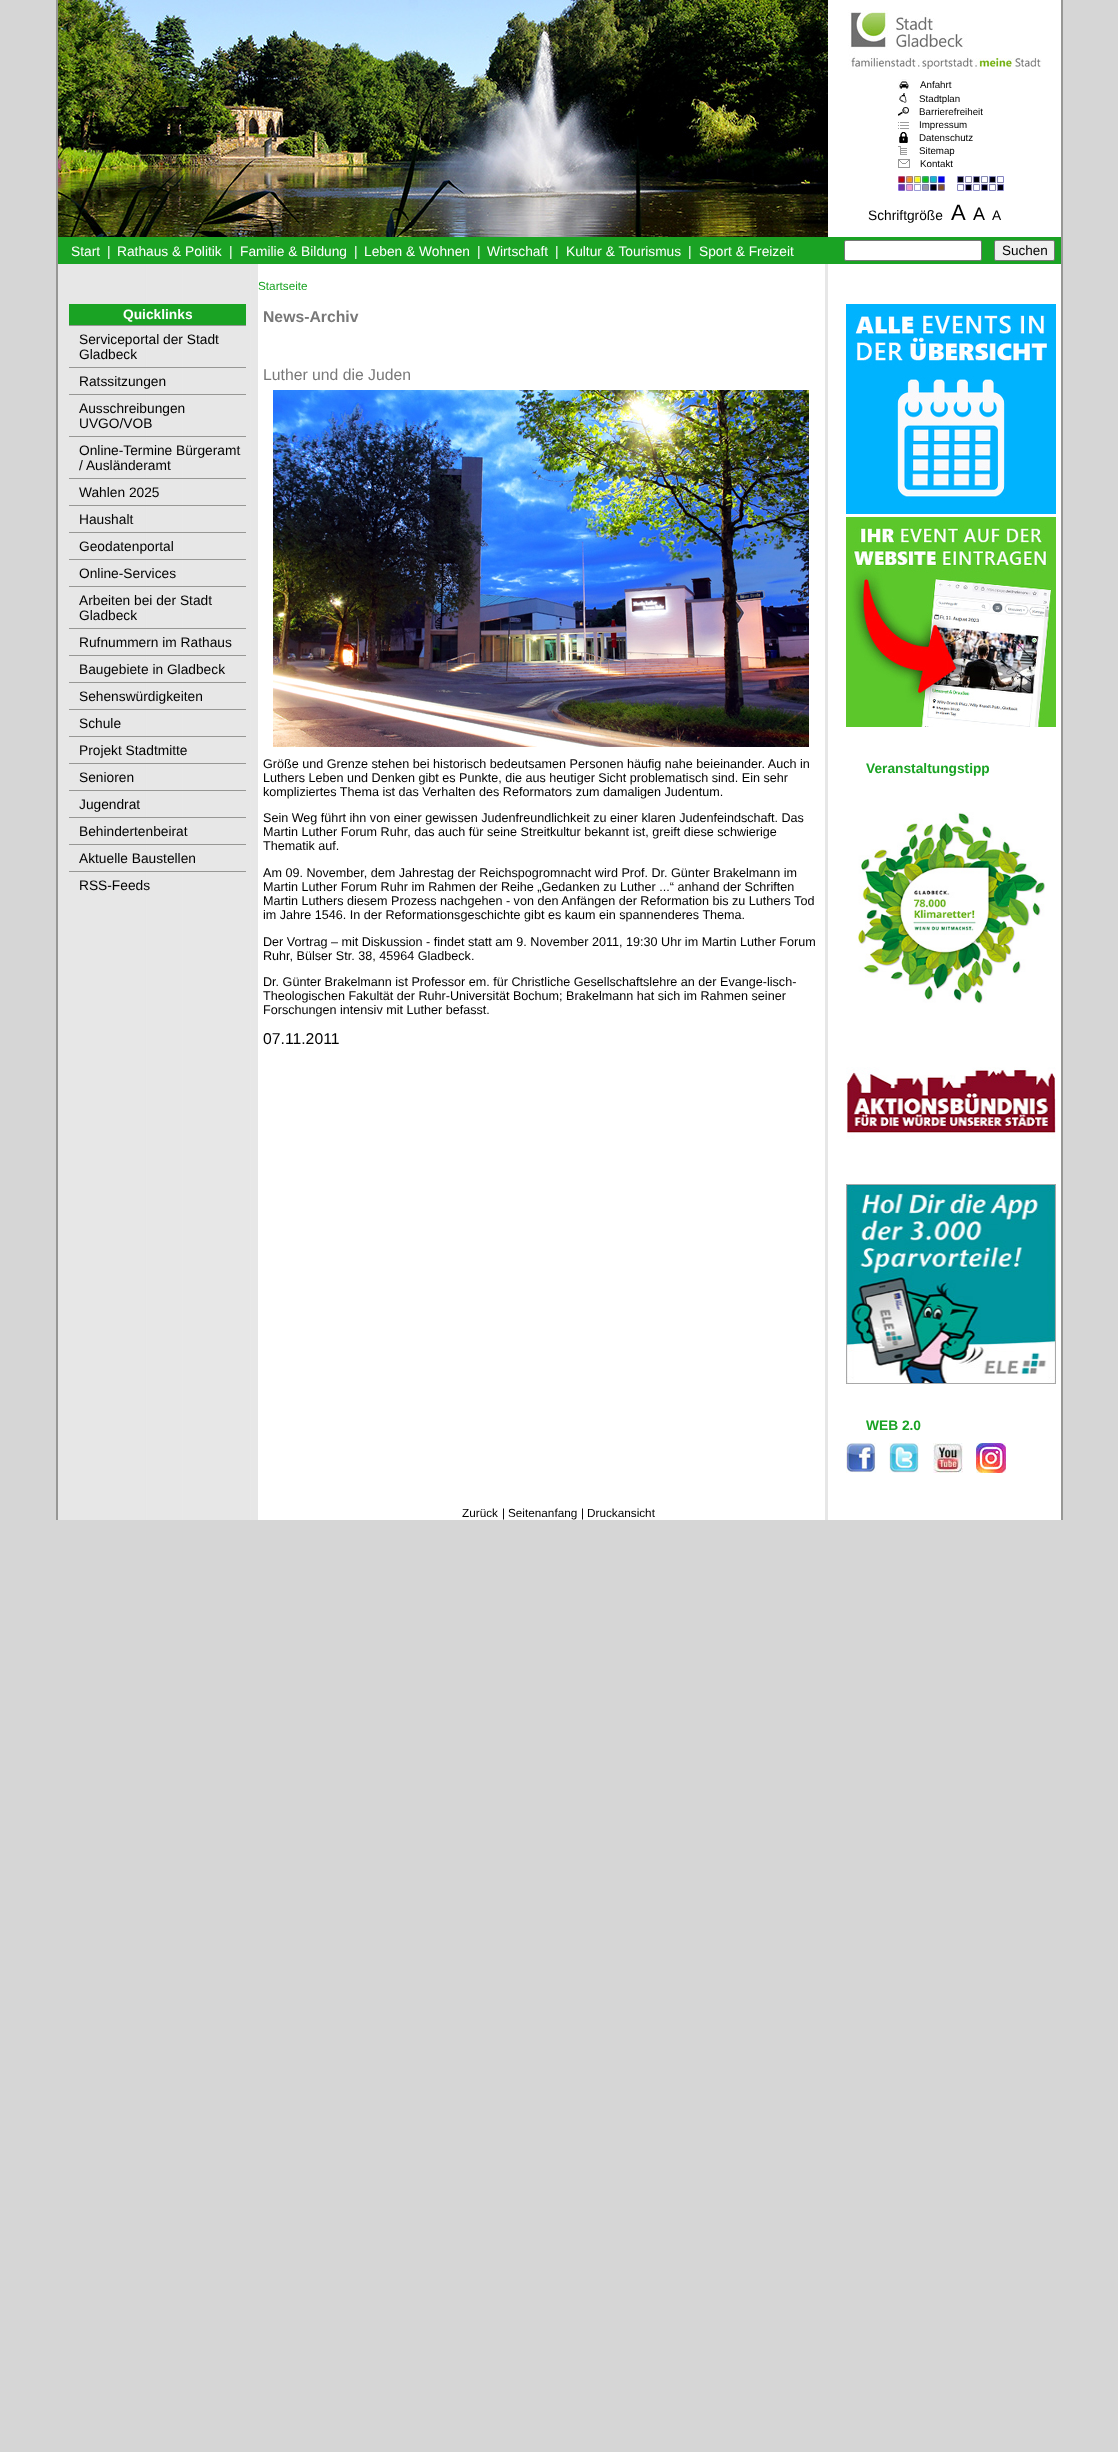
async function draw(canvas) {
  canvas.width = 1118;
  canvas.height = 2452;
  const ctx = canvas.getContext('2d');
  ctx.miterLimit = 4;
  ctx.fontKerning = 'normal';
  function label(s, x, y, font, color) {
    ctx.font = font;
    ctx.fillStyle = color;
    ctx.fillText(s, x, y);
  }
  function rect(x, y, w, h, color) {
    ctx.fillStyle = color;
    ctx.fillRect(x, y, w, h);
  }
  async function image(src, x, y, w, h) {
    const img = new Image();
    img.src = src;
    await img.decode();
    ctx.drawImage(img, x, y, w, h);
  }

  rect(0, 0, 1118, 2452, '#d6d6d6');
  await image('assets/img1.png', 58, 264, 1003, 1256);
  rect(1061, 0, 2, 1520, '#979795');
  rect(56, 0, 2, 1520, '#979795');
  rect(828, 0, 233, 237, '#fff');
  await image('assets/img2.png', 58, 0, 770, 237);
  await image('assets/img3.png', 848, 10, 194, 59);
  await image('assets/img4.png', 898, 79, 12, 12);
  label('Anfahrt', 920, 88, '9.75px Liberation Sans', '#000');
  await image('assets/img5.png', 899, 93, 8, 10);
  label('Stadtplan', 919, 102, '9.75px Liberation Sans', '#000');
  await image('assets/img6.png', 898, 107, 11, 9);
  label('Barrierefreiheit', 919, 115, '9.75px Liberation Sans', '#000');
  await image('assets/img7.png', 898, 122, 11, 7);
  label('Impressum', 919, 128, '9.75px Liberation Sans', '#000');
  await image('assets/img8.png', 899, 132, 9, 11);
  label('Datenschutz', 919, 141, '9.75px Liberation Sans', '#000');
  await image('assets/img9.png', 898, 146, 9, 9);
  label('Sitemap', 919, 154, '9.75px Liberation Sans', '#000');
  await image('assets/img10.png', 898, 159, 12, 9);
  label('Kontakt', 920, 167, '9.75px Liberation Sans', '#000');
  await image('assets/img11.png', 898, 176, 47, 15);
  await image('assets/img12.png', 957, 176, 47, 15);
  label('Schriftgröße', 868, 220, '13.75px Liberation Sans', '#000');
  label('A', 951, 220, '22px Liberation Sans', '#000');
  label('A', 973, 220, '18px Liberation Sans', '#000');
  label('A', 992, 220, '13.75px Liberation Sans', '#000');
  rect(58, 237, 1003, 27, '#1aa324');
  label('Start', 71, 256, '13.75px Liberation Sans', '#fff');
  label('|', 107, 256, '13.75px Liberation Sans', '#fff');
  label('Rathaus & Politik', 117, 256, '13.75px Liberation Sans', '#fff');
  label('|', 229, 256, '13.75px Liberation Sans', '#fff');
  label('Familie & Bildung', 240, 256, '13.75px Liberation Sans', '#fff');
  label('|', 354, 256, '13.75px Liberation Sans', '#fff');
  label('Leben & Wohnen', 364, 256, '13.75px Liberation Sans', '#fff');
  label('|', 477, 256, '13.75px Liberation Sans', '#fff');
  label('Wirtschaft', 487, 256, '13.75px Liberation Sans', '#fff');
  label('|', 555, 256, '13.75px Liberation Sans', '#fff');
  label('Kultur & Tourismus', 566, 256, '13.75px Liberation Sans', '#fff');
  label('|', 688, 256, '13.75px Liberation Sans', '#fff');
  label('Sport & Freizeit', 699, 256, '13.75px Liberation Sans', '#fff');
  ctx.beginPath();
  ctx.roundRect(844.5, 240.5, 137, 20, 1.5);
  ctx.fill();
  ctx.strokeStyle = '#767676';
  ctx.stroke();
  ctx.fillStyle = '#efefef';
  ctx.beginPath();
  ctx.roundRect(994.5, 240.5, 60, 20, 1.5);
  ctx.fill();
  ctx.stroke();
  label('Suchen', 1002, 255, '13.5px Liberation Sans', '#000');
  label('Startseite', 258, 290, '11.75px Liberation Sans', '#1aa324');
  rect(69, 304, 177, 21, '#1aa324');
  label('Quicklinks', 123, 319, 'bold 13.75px Liberation Sans', '#fff');
  rect(69, 325, 177, 1, '#979795');
  label('Serviceportal der Stadt', 79, 344, '13.75px Liberation Sans', '#000');
  label('Gladbeck', 79, 359, '13.75px Liberation Sans', '#000');
  rect(69, 367, 177, 1, '#979795');
  label('Ratssitzungen', 79, 386, '13.75px Liberation Sans', '#000');
  rect(69, 394, 177, 1, '#979795');
  label('Ausschreibungen', 79, 413, '13.75px Liberation Sans', '#000');
  label('UVGO/VOB', 79, 428, '13.75px Liberation Sans', '#000');
  rect(69, 436, 177, 1, '#979795');
  label('Online-Termine Bürgeramt', 79, 455, '13.75px Liberation Sans', '#000');
  label('/ Ausländeramt', 79, 470, '13.75px Liberation Sans', '#000');
  rect(69, 478, 177, 1, '#979795');
  label('Wahlen 2025', 79, 497, '13.75px Liberation Sans', '#000');
  rect(69, 505, 177, 1, '#979795');
  label('Haushalt', 79, 524, '13.75px Liberation Sans', '#000');
  rect(69, 532, 177, 1, '#979795');
  label('Geodatenportal', 79, 551, '13.75px Liberation Sans', '#000');
  rect(69, 559, 177, 1, '#979795');
  label('Online-Services', 79, 578, '13.75px Liberation Sans', '#000');
  rect(69, 586, 177, 1, '#979795');
  label('Arbeiten bei der Stadt', 79, 605, '13.75px Liberation Sans', '#000');
  label('Gladbeck', 79, 620, '13.75px Liberation Sans', '#000');
  rect(69, 628, 177, 1, '#979795');
  label('Rufnummern im Rathaus', 79, 647, '13.75px Liberation Sans', '#000');
  rect(69, 655, 177, 1, '#979795');
  label('Baugebiete in Gladbeck', 79, 674, '13.75px Liberation Sans', '#000');
  rect(69, 682, 177, 1, '#979795');
  label('Sehenswürdigkeiten', 79, 701, '13.75px Liberation Sans', '#000');
  rect(69, 709, 177, 1, '#979795');
  label('Schule', 79, 728, '13.75px Liberation Sans', '#000');
  rect(69, 736, 177, 1, '#979795');
  label('Projekt Stadtmitte', 79, 755, '13.75px Liberation Sans', '#000');
  rect(69, 763, 177, 1, '#979795');
  label('Senioren', 79, 782, '13.75px Liberation Sans', '#000');
  rect(69, 790, 177, 1, '#979795');
  label('Jugendrat', 79, 809, '13.75px Liberation Sans', '#000');
  rect(69, 817, 177, 1, '#979795');
  label('Behindertenbeirat', 79, 836, '13.75px Liberation Sans', '#000');
  rect(69, 844, 177, 1, '#979795');
  label('Aktuelle Baustellen', 79, 863, '13.75px Liberation Sans', '#000');
  rect(69, 871, 177, 1, '#979795');
  label('RSS-Feeds', 79, 890, '13.75px Liberation Sans', '#000');
  label('News-Archiv', 263, 322, 'bold 15.75px Liberation Sans', '#787878');
  label('Luther und die Juden', 263, 380, '15.75px Liberation Sans', '#787878');
  await image('assets/img13.png', 273, 390, 536, 357);
  label('Größe und Grenze stehen bei historisch bedeutsamen Personen häufig nahe beieinander. Auch in', 263, 768, '12.6px Liberation Sans', '#000');
  label('Luthers Leben und Denken gibt es Punkte, die aus heutiger Sicht problematisch sind. Ein sehr', 263, 782, '12.6px Liberation Sans', '#000');
  label('kompliziertes Thema ist das Verhalten des Reformators zum damaligen Judentum.', 263, 796, '12.6px Liberation Sans', '#000');
  label('Sein Weg führt ihn von einer gewissen Judenfreundlichkeit zu einer klaren Judenfeindschaft. Das', 263, 822, '12.6px Liberation Sans', '#000');
  label('Martin Luther Forum Ruhr, das auch für seine Streitkultur bekannt ist, greift diese schwierige', 263, 836, '12.6px Liberation Sans', '#000');
  label('Thematik auf.', 263, 850, '12.6px Liberation Sans', '#000');
  label('Am 09. November, dem Jahrestag der Reichspogromnacht wird Prof. Dr. Günter Brakelmann im', 263, 877, '12.6px Liberation Sans', '#000');
  label('Martin Luther Forum Ruhr im Rahmen der Reihe „Gedanken zu Luther ...“ anhand der Schriften', 263, 891, '12.6px Liberation Sans', '#000');
  label('Martin Luthers diesem Prozess nachgehen - von den Anfängen der Reformation bis zu Luthers Tod', 263, 905, '12.6px Liberation Sans', '#000');
  label('im Jahre 1546. In der Reformationsgeschichte gibt es kaum ein spannenderes Thema.', 263, 919, '12.6px Liberation Sans', '#000');
  label('Der Vortrag – mit Diskussion - findet statt am 9. November 2011, 19:30 Uhr im Martin Luther Forum', 263, 946, '12.6px Liberation Sans', '#000');
  label('Ruhr, Bülser Str. 38, 45964 Gladbeck.', 263, 960, '12.6px Liberation Sans', '#000');
  label('Dr. Günter Brakelmann ist Professor em. für Christliche Gesellschaftslehre an der Evange-lisch-', 263, 986, '12.6px Liberation Sans', '#000');
  label('Theologischen Fakultät der Ruhr-Universität Bochum; Brakelmann hat sich im Rahmen seiner', 263, 1000, '12.6px Liberation Sans', '#000');
  label('Forschungen intensiv mit Luther befasst.', 263, 1014, '12.6px Liberation Sans', '#000');
  label('07.11.2011', 263, 1044, '15.75px Liberation Sans', '#000');
  await image('assets/img14.png', 846, 304, 210, 210);
  await image('assets/img15.png', 846, 517, 210, 210);
  label('Veranstaltungstipp', 866, 773, 'bold 13.75px Liberation Sans', '#1aa324');
  await image('assets/img16.png', 856, 812, 189, 192);
  await image('assets/img17.png', 846, 1067, 210, 72);
  await image('assets/img18.png', 846, 1184, 210, 200);
  label('WEB 2.0', 866, 1430, 'bold 13.75px Liberation Sans', '#1aa324');
  await image('assets/img19.png', 846, 1443, 30, 30);
  await image('assets/img20.png', 889, 1443, 30, 30);
  await image('assets/img21.png', 933, 1443, 30, 30);
  await image('assets/img22.png', 976, 1443, 30, 30);
  label('Zurück', 462, 1517, '11.75px Liberation Sans', '#000');
  label('|', 502, 1517, '11.75px Liberation Sans', '#000');
  label('Seitenanfang', 508, 1517, '11.75px Liberation Sans', '#000');
  label('|', 581, 1517, '11.75px Liberation Sans', '#000');
  label('Druckansicht', 587, 1517, '11.75px Liberation Sans', '#000');
}

draw(document.querySelector('canvas'));
